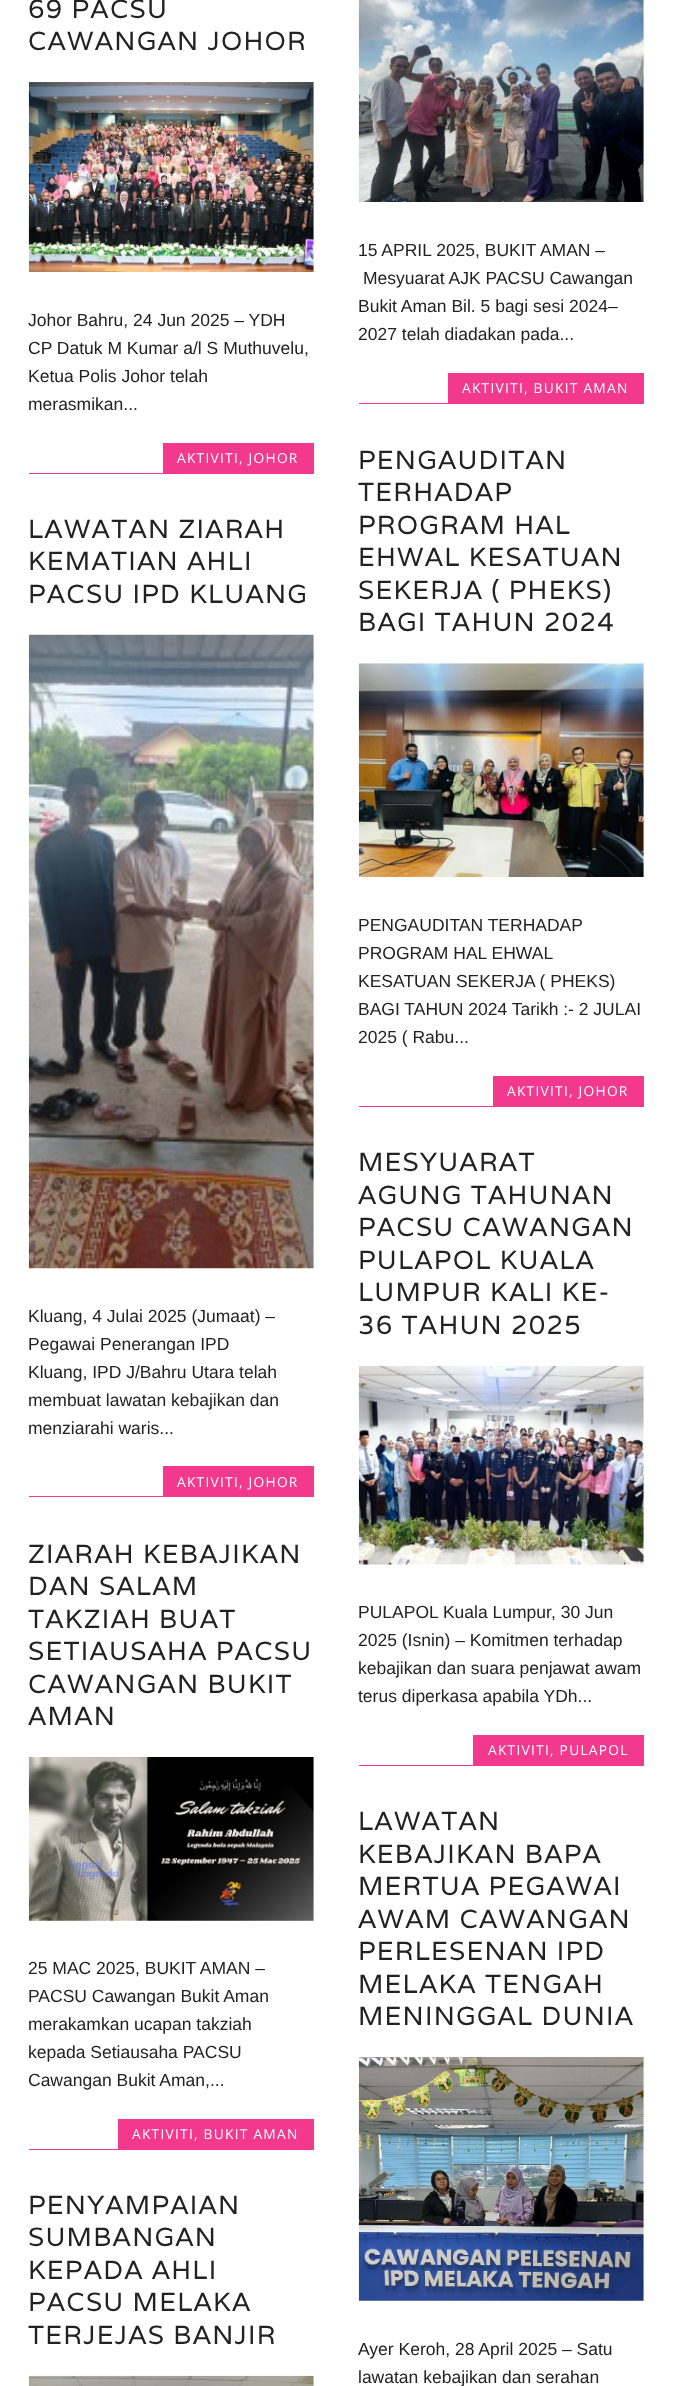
async function draw(canvas) {
  canvas.width = 696;
  canvas.height = 2386;
  const ctx = canvas.getContext('2d');
  ctx.miterLimit = 4;
  ctx.fontKerning = 'normal';
  function label(s, x, y, font, color) {
    ctx.font = font;
    ctx.fillStyle = color;
    ctx.fillText(s, x, y);
  }
  function rect(x, y, w, h, color) {
    ctx.fillStyle = color;
    ctx.fillRect(x, y, w, h);
  }
  async function image(src, x, y, w, h) {
    const img = new Image();
    img.src = src;
    await img.decode();
    ctx.drawImage(img, x, y, w, h);
  }

  rect(0, 0, 696, 2386, '#fff');
  ctx.letterSpacing = '1.25px';
  label('69 PACSU', 28, 18, '26.25px Varela', '#222');
  label('CAWANGAN JOHOR', 28, 50, '26.25px Varela', '#222');
  await image('assets/img1.png', 28, 82, 286, 190);
  ctx.letterSpacing = '0px';
  label('Johor Bahru, 24 Jun 2025 – YDH', 28, 326, '17.5px Liberation Sans', '#222');
  label('CP Datuk M Kumar a/l S Muthuvelu,', 28, 354, '17.5px Liberation Sans', '#222');
  label('Ketua Polis Johor telah', 28, 382, '17.5px Liberation Sans', '#222');
  label('merasmikan...', 28, 410, '17.5px Liberation Sans', '#222');
  rect(163, 443, 151, 30, '#f3398d');
  ctx.letterSpacing = '1.25px';
  label('AKTIVITI, JOHOR', 177, 463, '13.75px Open Sans', '#fff');
  rect(29, 473, 285, 1, '#f3398d');
  await image('assets/img2.png', 358, 0, 286, 202);
  ctx.letterSpacing = '0px';
  label('15 APRIL 2025, BUKIT AMAN –', 358, 256, '17.5px Liberation Sans', '#222');
  label('Mesyuarat AJK PACSU Cawangan', 363, 284, '17.5px Liberation Sans', '#222');
  label('Bukit Aman Bil. 5 bagi sesi 2024–', 358, 312, '17.5px Liberation Sans', '#222');
  label('2027 telah diadakan pada...', 358, 340, '17.5px Liberation Sans', '#222');
  rect(448, 373, 196, 30, '#f3398d');
  ctx.letterSpacing = '1.25px';
  label('AKTIVITI, BUKIT AMAN', 462, 393, '13.75px Open Sans', '#fff');
  rect(359, 403, 285, 1, '#f3398d');
  label('LAWATAN ZIARAH', 28, 538, '26.25px Varela', '#222');
  label('KEMATIAN AHLI', 28, 570, '26.25px Varela', '#222');
  label('PACSU IPD KLUANG', 28, 603, '26.25px Varela', '#222');
  await image('assets/img3.png', 28, 634, 286, 635);
  ctx.letterSpacing = '0px';
  label('Kluang, 4 Julai 2025 (Jumaat) –', 28, 1322, '17.5px Liberation Sans', '#222');
  label('Pegawai Penerangan IPD', 28, 1350, '17.5px Liberation Sans', '#222');
  label('Kluang, IPD J/Bahru Utara telah', 28, 1378, '17.5px Liberation Sans', '#222');
  label('membuat lawatan kebajikan dan', 28, 1406, '17.5px Liberation Sans', '#222');
  label('menziarahi waris...', 28, 1434, '17.5px Liberation Sans', '#222');
  rect(163, 1466, 151, 30, '#f3398d');
  ctx.letterSpacing = '1.25px';
  label('AKTIVITI, JOHOR', 177, 1487, '13.75px Open Sans', '#fff');
  rect(29, 1496, 285, 1, '#f3398d');
  label('PENGAUDITAN', 358, 469, '26.25px Varela', '#222');
  label('TERHADAP', 358, 501, '26.25px Varela', '#222');
  label('PROGRAM HAL', 358, 534, '26.25px Varela', '#222');
  label('EHWAL KESATUAN', 358, 566, '26.25px Varela', '#222');
  label('SEKERJA ( PHEKS)', 358, 599, '26.25px Varela', '#222');
  label('BAGI TAHUN 2024', 358, 631, '26.25px Varela', '#222');
  await image('assets/img4.png', 358, 663, 286, 214);
  ctx.letterSpacing = '0px';
  label('PENGAUDITAN TERHADAP', 358, 931, '17.5px Liberation Sans', '#222');
  label('PROGRAM HAL EHWAL', 358, 959, '17.5px Liberation Sans', '#222');
  label('KESATUAN SEKERJA ( PHEKS)', 358, 987, '17.5px Liberation Sans', '#222');
  label('BAGI TAHUN 2024 Tarikh :- 2 JULAI', 358, 1015, '17.5px Liberation Sans', '#222');
  label('2025 ( Rabu...', 358, 1043, '17.5px Liberation Sans', '#222');
  rect(493, 1076, 151, 30, '#f3398d');
  ctx.letterSpacing = '1.25px';
  label('AKTIVITI, JOHOR', 507, 1096, '13.75px Open Sans', '#fff');
  rect(359, 1106, 285, 1, '#f3398d');
  label('MESYUARAT', 358, 1171, '26.25px Varela', '#222');
  label('AGUNG TAHUNAN', 358, 1204, '26.25px Varela', '#222');
  label('PACSU CAWANGAN', 358, 1236, '26.25px Varela', '#222');
  label('PULAPOL KUALA', 358, 1269, '26.25px Varela', '#222');
  label('LUMPUR KALI KE-', 358, 1301, '26.25px Varela', '#222');
  label('36 TAHUN 2025', 358, 1334, '26.25px Varela', '#222');
  await image('assets/img5.png', 358, 1365, 286, 200);
  ctx.letterSpacing = '0px';
  label('PULAPOL Kuala Lumpur, 30 Jun', 358, 1618, '17.5px Liberation Sans', '#222');
  label('2025 (Isnin) – Komitmen terhadap', 358, 1646, '17.5px Liberation Sans', '#222');
  label('kebajikan dan suara penjawat awam', 358, 1674, '17.5px Liberation Sans', '#222');
  label('terus diperkasa apabila YDh...', 358, 1702, '17.5px Liberation Sans', '#222');
  rect(473, 1735, 171, 30, '#f3398d');
  ctx.letterSpacing = '1.25px';
  label('AKTIVITI, PULAPOL', 488, 1755, '13.75px Open Sans', '#fff');
  rect(359, 1765, 285, 1, '#f3398d');
  label('ZIARAH KEBAJIKAN', 28, 1563, '26.25px Varela', '#222');
  label('DAN SALAM', 28, 1595, '26.25px Varela', '#222');
  label('TAKZIAH BUAT', 28, 1628, '26.25px Varela', '#222');
  label('SETIAUSAHA PACSU', 28, 1660, '26.25px Varela', '#222');
  label('CAWANGAN BUKIT', 28, 1693, '26.25px Varela', '#222');
  label('AMAN', 28, 1725, '26.25px Varela', '#222');
  await image('assets/img6.png', 28, 1757, 286, 164);
  ctx.letterSpacing = '0px';
  label('25 MAC 2025, BUKIT AMAN –', 28, 1974, '17.5px Liberation Sans', '#222');
  label('PACSU Cawangan Bukit Aman', 28, 2002, '17.5px Liberation Sans', '#222');
  label('merakamkan ucapan takziah', 28, 2030, '17.5px Liberation Sans', '#222');
  label('kepada Setiausaha PACSU', 28, 2058, '17.5px Liberation Sans', '#222');
  label('Cawangan Bukit Aman,...', 28, 2086, '17.5px Liberation Sans', '#222');
  rect(118, 2119, 196, 30, '#f3398d');
  ctx.letterSpacing = '1.25px';
  label('AKTIVITI, BUKIT AMAN', 132, 2139, '13.75px Open Sans', '#fff');
  rect(29, 2149, 285, 1, '#f3398d');
  label('LAWATAN', 358, 1830, '26.25px Varela', '#222');
  label('KEBAJIKAN BAPA', 358, 1863, '26.25px Varela', '#222');
  label('MERTUA PEGAWAI', 358, 1895, '26.25px Varela', '#222');
  label('AWAM CAWANGAN', 358, 1928, '26.25px Varela', '#222');
  label('PERLESENAN IPD', 358, 1960, '26.25px Varela', '#222');
  label('MELAKA TENGAH', 358, 1993, '26.25px Varela', '#222');
  label('MENINGGAL DUNIA', 358, 2025, '26.25px Varela', '#222');
  await image('assets/img7.png', 358, 2057, 286, 244);
  ctx.letterSpacing = '0px';
  label('Ayer Keroh, 28 April 2025 – Satu', 358, 2355, '17.5px Liberation Sans', '#222');
  label('lawatan kebajikan dan serahan', 358, 2383, '17.5px Liberation Sans', '#222');
  ctx.letterSpacing = '1.25px';
  label('PENYAMPAIAN', 28, 2214, '26.25px Varela', '#222');
  label('SUMBANGAN', 28, 2246, '26.25px Varela', '#222');
  label('KEPADA AHLI', 28, 2279, '26.25px Varela', '#222');
  label('PACSU MELAKA', 28, 2311, '26.25px Varela', '#222');
  label('TERJEJAS BANJIR', 28, 2344, '26.25px Varela', '#222');
  await image('assets/img8.png', 28, 2375, 286, 11);
}

draw(document.querySelector('canvas'));
